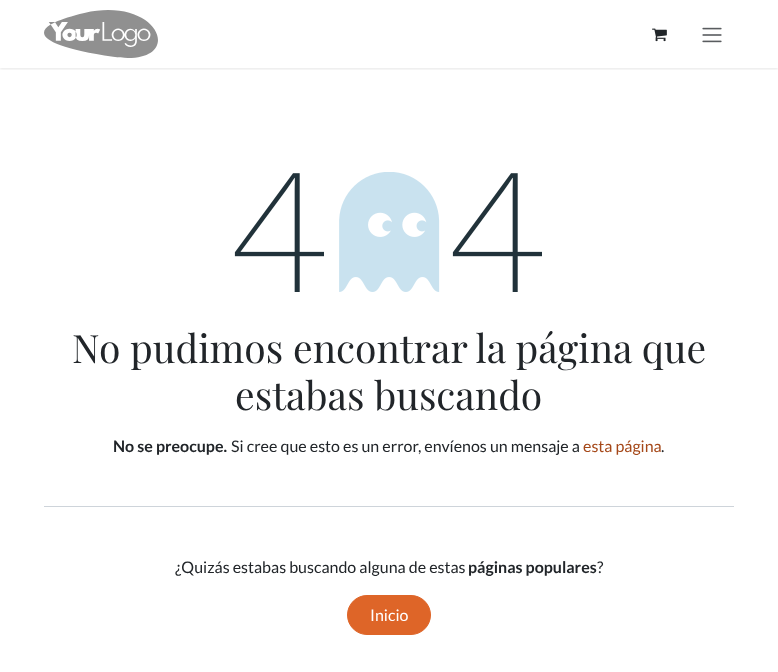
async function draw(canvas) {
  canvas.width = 778;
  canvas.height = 672;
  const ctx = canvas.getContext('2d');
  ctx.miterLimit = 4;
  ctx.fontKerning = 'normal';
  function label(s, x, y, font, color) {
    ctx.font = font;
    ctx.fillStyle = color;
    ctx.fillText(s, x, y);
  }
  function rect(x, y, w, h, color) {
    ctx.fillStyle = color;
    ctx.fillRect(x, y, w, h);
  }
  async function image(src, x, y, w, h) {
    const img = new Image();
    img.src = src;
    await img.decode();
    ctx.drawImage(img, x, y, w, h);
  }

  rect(0, 0, 778, 672, '#fff');
  ctx.save();
  ctx.beginPath();
  ctx.rect(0, 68, 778, 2);
  ctx.clip();
  ctx.fillStyle = '#0000001a';
  ctx.filter = 'blur(1.5px)';
  ctx.beginPath();
  ctx.rect(0, 1, 778, 68);
  ctx.fill();
  ctx.filter = 'none';
  ctx.restore();
  await image('assets/img1.png', 44, 10, 114, 48);
  await image('assets/img2.png', 652, 28, 15, 14);
  await image('assets/img3.png', 702, 27, 20, 16);
  await image('assets/img4.png', 234, 172, 308, 120);
  label('No pudimos encontrar la página que', 72, 363, '39.1px Playfair Display', '#212529');
  label('estabas buscando', 235, 410, '39.1px Playfair Display', '#212529');
  label('No se preocupe.', 113, 452, 'bold 16px Lato', '#212529');
  label('Si cree que esto es un error, envíenos un mensaje a', 231, 452, '16px Lato', '#212529');
  label('esta página', 583, 452, '16px Lato', '#a54819');
  label('.', 661, 452, '16px Lato', '#212529');
  rect(44, 506, 690, 1, '#ced4da');
  label('¿Quizás estabas buscando alguna de estas', 175, 573, '16px Lato', '#212529');
  label('páginas populares', 468, 573, 'bold 16px Lato', '#212529');
  label('?', 597, 573, '16px Lato', '#212529');
  ctx.fillStyle = '#de6528';
  ctx.beginPath();
  ctx.roundRect(347.5, 595.5, 83, 39, 19.5);
  ctx.fill();
  ctx.strokeStyle = '#de6528';
  ctx.stroke();
  label('Inicio', 370, 621, '16px Lato', '#fff');
}

draw(document.querySelector('canvas'));
